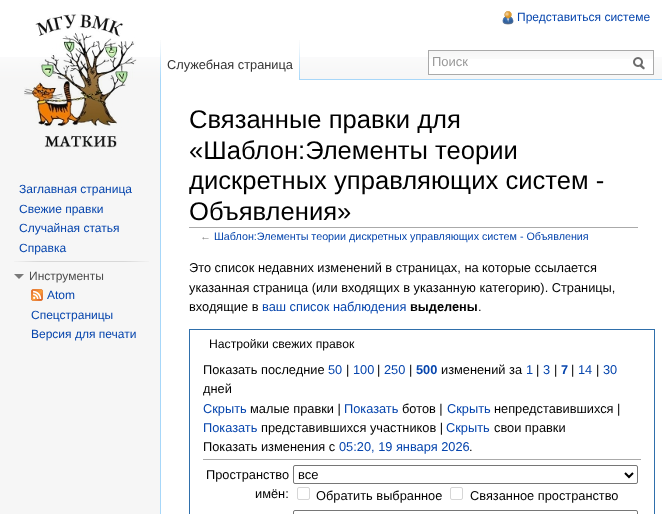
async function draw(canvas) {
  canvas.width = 662;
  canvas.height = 514;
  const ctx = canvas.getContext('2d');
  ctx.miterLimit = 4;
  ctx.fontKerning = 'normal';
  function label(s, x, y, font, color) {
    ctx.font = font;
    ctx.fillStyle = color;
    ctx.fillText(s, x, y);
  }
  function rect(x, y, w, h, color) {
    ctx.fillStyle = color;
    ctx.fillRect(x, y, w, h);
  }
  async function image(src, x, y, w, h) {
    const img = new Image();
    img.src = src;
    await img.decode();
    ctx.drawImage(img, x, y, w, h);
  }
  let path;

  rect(0, 0, 662, 514, '#f6f6f6');
  rect(0, 0, 662, 57, '#fff');
  await image('assets/img1.png', 0, 57, 662, 23);
  await image('assets/img2.png', 502, 11, 12, 14);
  label('Представиться системе', 517, 21, '12px Liberation Sans', '#0645ad');
  await image('assets/img3.png', 160, 40, 1, 39);
  rect(161, 57, 138, 23, '#fff');
  await image('assets/img4.png', 299, 40, 1, 40);
  label('Служебная страница', 167, 69, '12.8px Liberation Sans', '#333');
  rect(429, 59, 224, 15, '#fff');
  await image('assets/img5.png', 429, 51, 224, 8);
  ctx.strokeStyle = '#aaa';
  ctx.strokeRect(428.5, 50.5, 225, 24);
  label('Поиск', 432, 66, '13px Liberation Sans', '#999');
  await image('assets/img6.png', 633, 57, 12, 13);
  await image('assets/img7.png', 24, 14, 113, 134);
  label('Заглавная страница', 19, 193, '12px Liberation Sans', '#0645ad');
  label('Свежие правки', 19, 213, '12px Liberation Sans', '#0645ad');
  label('Случайная статья', 19, 232, '12px Liberation Sans', '#0645ad');
  label('Справка', 19, 252, '12px Liberation Sans', '#0645ad');
  await image('assets/img8.png', 14, 261, 135, 1);
  ctx.fillStyle = '#797979';
  path = new Path2D('M24 274L19 279L14 274Z');
  ctx.fill(path);
  label('Инструменты', 29, 280, '12px Liberation Sans', '#4d4d4d');
  await image('assets/img9.png', 31, 289, 12, 12);
  label('Atom', 47, 299, '12px Liberation Sans', '#0645ad');
  label('Спецстраницы', 31, 319, '12px Liberation Sans', '#0645ad');
  label('Версия для печати', 31, 338, '12px Liberation Sans', '#0645ad');
  rect(161, 80, 501, 434, '#fff');
  rect(300, 79, 362, 1, '#a7d7f9');
  rect(160, 79, 1, 435, '#a7d7f9');
  rect(189, 227, 449, 1, '#aaa');
  label('Связанные правки для', 189, 128, '25.6px Liberation Sans', '#000');
  label('«Шаблон:Элементы теории', 189, 159, '25.6px Liberation Sans', '#000');
  label('дискретных управляющих систем -', 189, 189, '25.6px Liberation Sans', '#000');
  label('Объявления»', 189, 220, '25.6px Liberation Sans', '#000');
  label('←', 200, 240, '10.75px Liberation Sans', '#7d7d7d');
  label('Шаблон:Элементы теории дискретных управляющих систем - Объявления', 214, 240, '10.75px Liberation Sans', '#0645ad');
  label('Это список недавних изменений в страницах, на которые ссылается', 189, 272, '12.8px Liberation Sans', '#000');
  label('указанная страница (или входящих в указанную категорию). Страницы,', 189, 292, '12.8px Liberation Sans', '#000');
  label('входящие в', 189, 311, '12.8px Liberation Sans', '#000');
  label('ваш список наблюдения', 262, 311, '12.8px Liberation Sans', '#0645ad');
  label('выделены', 410, 311, 'bold 12.8px Liberation Sans', '#000');
  label('.', 478, 311, '12.8px Liberation Sans', '#000');
  ctx.strokeStyle = '#2f6fab';
  ctx.strokeRect(189.5, 329.5, 465, 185);
  label('Настройки свежих правок', 209, 348, '12.2px Liberation Sans', '#000');
  label('Показать последние', 203, 374, '12.8px Liberation Sans', '#000');
  label('50', 328, 374, '12.8px Liberation Sans', '#0645ad');
  label('|', 346, 374, '12.8px Liberation Sans', '#000');
  label('100', 353, 374, '12.8px Liberation Sans', '#0645ad');
  label('|', 377, 374, '12.8px Liberation Sans', '#000');
  label('250', 384, 374, '12.8px Liberation Sans', '#0645ad');
  label('|', 409, 374, '12.8px Liberation Sans', '#000');
  label('500', 416, 374, 'bold 12.8px Liberation Sans', '#0645ad');
  label('изменений за', 441, 374, '12.8px Liberation Sans', '#000');
  label('1', 526, 374, '12.8px Liberation Sans', '#0645ad');
  label('|', 536, 374, '12.8px Liberation Sans', '#000');
  label('3', 543, 374, '12.8px Liberation Sans', '#0645ad');
  label('|', 554, 374, '12.8px Liberation Sans', '#000');
  label('7', 561, 374, 'bold 12.8px Liberation Sans', '#0645ad');
  label('|', 571, 374, '12.8px Liberation Sans', '#000');
  label('14', 578, 374, '12.8px Liberation Sans', '#0645ad');
  label('|', 596, 374, '12.8px Liberation Sans', '#000');
  label('30', 603, 374, '12.8px Liberation Sans', '#0645ad');
  label('дней', 203, 393, '12.8px Liberation Sans', '#000');
  label('Скрыть', 203, 413, '12.8px Liberation Sans', '#0645ad');
  label('малые правки |', 250, 413, '12.8px Liberation Sans', '#000');
  label('Показать', 344, 413, '12.8px Liberation Sans', '#0645ad');
  label('ботов |', 402, 413, '12.8px Liberation Sans', '#000');
  label('Скрыть', 447, 413, '12.8px Liberation Sans', '#0645ad');
  label('непредставившихся |', 494, 413, '12.8px Liberation Sans', '#000');
  label('Показать', 203, 432, '12.8px Liberation Sans', '#0645ad');
  label('представившихся участников |', 261, 432, '12.8px Liberation Sans', '#000');
  label('Скрыть', 446, 432, '12.8px Liberation Sans', '#0645ad');
  label('свои правки', 494, 432, '12.8px Liberation Sans', '#000');
  label('Показать изменения с', 203, 451, '12.8px Liberation Sans', '#000');
  label('05:20, 19 января 2026', 339, 451, '12.8px Liberation Sans', '#0645ad');
  label('.', 469, 451, '12.8px Liberation Sans', '#000');
  rect(203, 459, 438, 1, '#aaa');
  label('Пространство', 206, 479, '12.8px Liberation Sans', '#000');
  label('имён:', 255, 498, '12.8px Liberation Sans', '#000');
  ctx.beginPath();
  ctx.roundRect(293.5, 465.5, 344, 18, 1.5);
  ctx.strokeStyle = '#767676';
  ctx.stroke();
  path = new Path2D('M625 473L629 477L633 473');
  ctx.strokeStyle = '#000';
  ctx.lineWidth = 2;
  ctx.stroke(path);
  label('все', 298, 479, '13px Liberation Sans', '#000');
  ctx.beginPath();
  ctx.roundRect(297.5, 487.5, 12, 12, 1.5);
  ctx.strokeStyle = '#d6d6d6';
  ctx.lineWidth = 1;
  ctx.stroke();
  label('Обратить выбранное', 316, 500, '12.8px Liberation Sans', '#000');
  ctx.beginPath();
  ctx.roundRect(450.5, 487.5, 12, 12, 1.5);
  ctx.stroke();
  label('Связанное пространство', 470, 500, '12.8px Liberation Sans', '#000');
  ctx.beginPath();
  ctx.roundRect(293.5, 510.5, 344, 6, 1.5);
  ctx.strokeStyle = '#767676';
  ctx.stroke();
}

draw(document.querySelector('canvas'));
